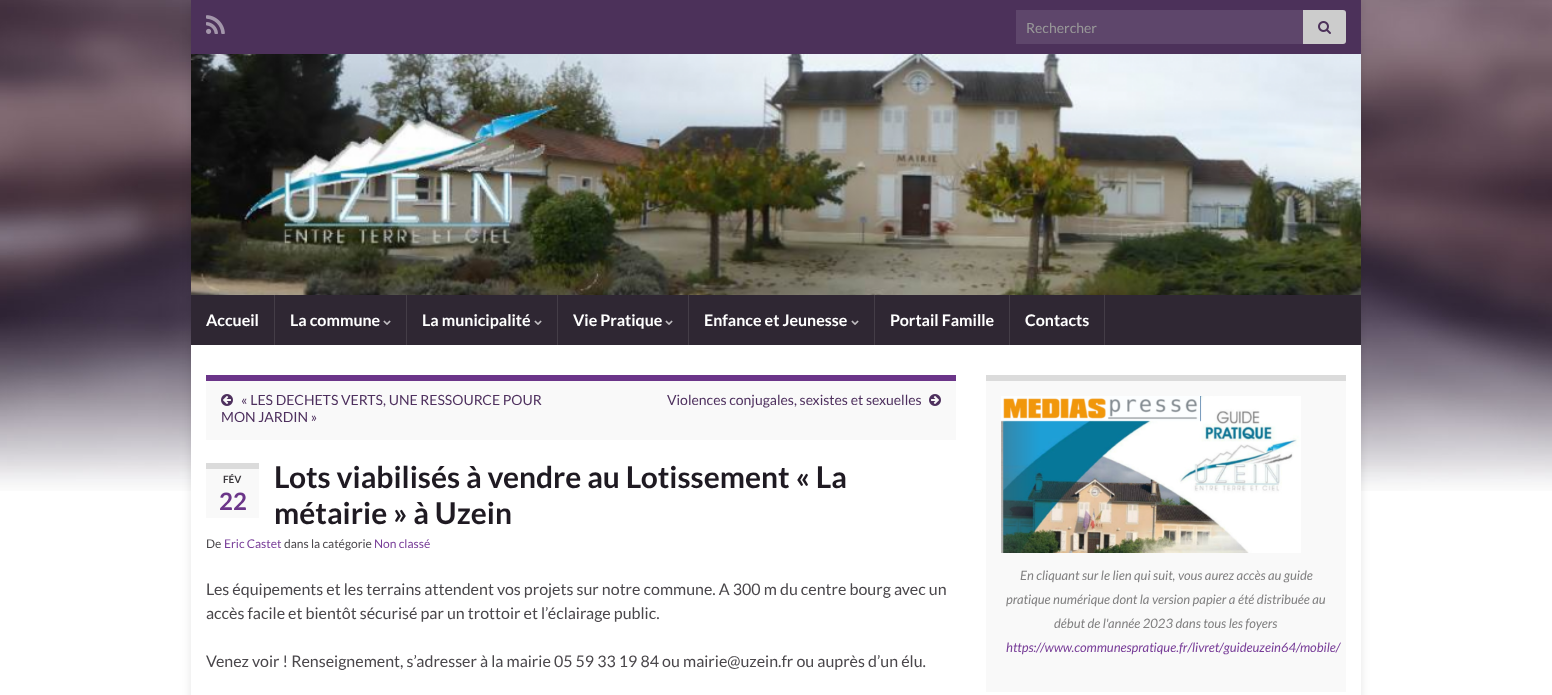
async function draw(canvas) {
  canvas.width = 1552;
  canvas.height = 695;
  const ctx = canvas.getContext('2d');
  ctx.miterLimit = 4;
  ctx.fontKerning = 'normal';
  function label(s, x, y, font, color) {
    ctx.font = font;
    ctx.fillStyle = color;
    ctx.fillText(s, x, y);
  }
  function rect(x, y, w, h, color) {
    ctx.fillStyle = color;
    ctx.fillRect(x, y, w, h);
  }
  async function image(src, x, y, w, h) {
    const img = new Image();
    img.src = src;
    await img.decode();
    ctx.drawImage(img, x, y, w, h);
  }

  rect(0, 0, 1552, 695, '#fff');
  await image('assets/img1.png', 0, 0, 1552, 491);
  ctx.fillStyle = '#0000001a';
  ctx.filter = 'blur(5px)';
  ctx.beginPath();
  ctx.rect(191, 0, 1170, 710);
  ctx.fill();
  ctx.filter = 'none';
  rect(191, 0, 1170, 54, '#4c315a');
  await image('assets/img2.png', 206, 15, 19, 19);
  rect(1016, 10, 287, 34, '#5e466b');
  label('Rechercher', 1026, 33, '14px Lato', '#999');
  ctx.fillStyle = '#ccc';
  ctx.beginPath();
  ctx.roundRect(1303, 10, 43, 34, [0, 3, 3, 0]);
  ctx.fill();
  await image('assets/img3.png', 1318, 21, 13, 13);
  await image('assets/img4.png', 191, 54, 1170, 241);
  rect(191, 295, 1170, 50, '#2f2733');
  rect(274, 295, 1, 50, '#443d47');
  label('Accueil', 206, 326, 'bold 16px Lato', '#fff');
  rect(406, 295, 1, 50, '#443d47');
  label('La commune', 290, 326, 'bold 16px Lato', '#fff');
  await image('assets/img5.png', 383, 320, 8, 5);
  rect(557, 295, 1, 50, '#443d47');
  label('La municipalité', 422, 326, 'bold 16px Lato', '#fff');
  await image('assets/img5.png', 534, 320, 8, 5);
  rect(688, 295, 1, 50, '#443d47');
  label('Vie Pratique', 573, 326, 'bold 16px Lato', '#fff');
  await image('assets/img5.png', 665, 320, 8, 5);
  rect(874, 295, 1, 50, '#443d47');
  label('Enfance et Jeunesse', 704, 326, 'bold 16px Lato', '#fff');
  await image('assets/img5.png', 851, 320, 8, 5);
  rect(1009, 295, 1, 50, '#443d47');
  label('Portail Famille', 890, 326, 'bold 16px Lato', '#fff');
  rect(1104, 295, 1, 50, '#443d47');
  label('Contacts', 1025, 326, 'bold 16px Lato', '#fff');
  rect(191, 345, 1170, 350, '#fff');
  rect(206, 381, 750, 59, '#f9f9f9');
  rect(206, 375, 750, 6, '#6b3589');
  await image('assets/img6.png', 221, 394, 12, 12);
  label('« LES DECHETS VERTS, UNE RESSOURCE POUR', 241, 405, '14px Lato', '#4e305e');
  label('MON JARDIN »', 221, 422, '14px Lato', '#4e305e');
  label('Violences conjugales, sexistes et sexuelles', 667, 405, '14px Lato', '#4e305e');
  await image('assets/img7.png', 929, 394, 12, 12);
  rect(206, 469, 53, 49, '#f9f9f9');
  rect(206, 463, 53, 6, '#dbdbdb');
  label('FÉV', 223, 483, 'bold 10px Lato', '#3b383d');
  label('22', 219, 510, 'bold 24px Lato', '#6b3589');
  label('Lots viabilisés à vendre au Lotissement « La', 274, 488, 'bold 30px Lato', '#1f1a22');
  label('métairie » à Uzein', 274, 524, 'bold 30px Lato', '#1f1a22');
  label('De', 206, 548, '12px Lato', '#4a474b');
  label('Eric Castet', 224, 548, '12px Lato', '#783d98');
  label('dans la catégorie', 284, 548, '12px Lato', '#4a474b');
  label('Non classé', 374, 548, '12px Lato', '#783d98');
  label('Les équipements et les terrains attendent vos projets sur notre commune. A 300 m du centre bourg avec un', 206, 595, '16px Lato', '#4a474b');
  label('accès facile et bientôt sécurisé par un trottoir et l’éclairage public.', 206, 619, '16px Lato', '#4a474b');
  label('Venez voir ! Renseignement, s’adresser à la mairie 05 59 33 19 84 ou mairie@uzein.fr ou auprès d’un élu.', 206, 667, '16px Lato', '#4a474b');
  rect(986, 381, 360, 311, '#f9f9f9');
  rect(986, 375, 360, 6, '#dbdbdb');
  await image('assets/img8.png', 1001, 396, 300, 157);
  label('En cliquant sur le lien qui suit, vous aurez accès au guide', 1020, 580, 'italic 13px Lato', '#818081');
  label('pratique numérique dont la version papier a été distribuée au', 1006, 604, 'italic 13px Lato', '#818081');
  label('début de l\'année 2023 dans tous les foyers', 1054, 628, 'italic 13px Lato', '#818081');
  label('https://www.communespratique.fr/livret/guideuzein64/mobile/', 1006, 652, 'italic 13px Lato', '#783d98');
}

draw(document.querySelector('canvas'));
